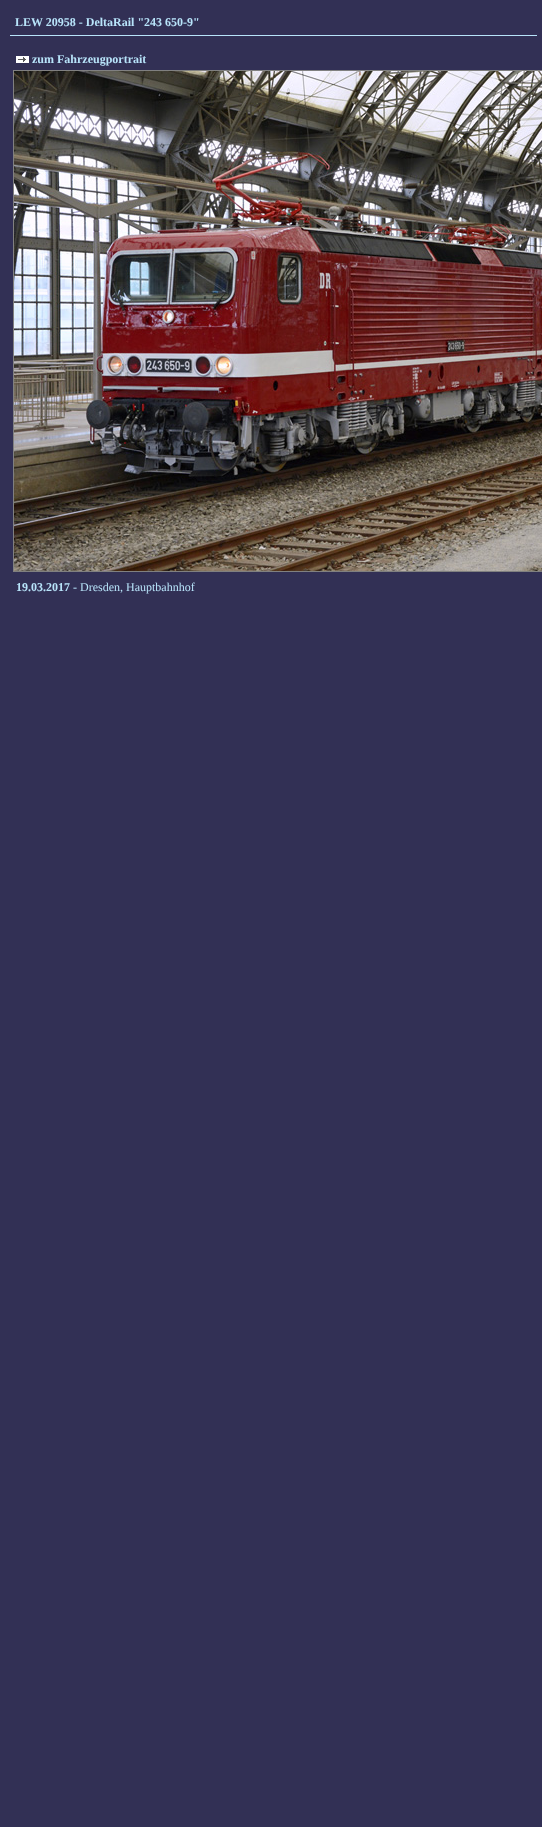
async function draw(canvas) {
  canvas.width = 542;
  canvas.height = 1827;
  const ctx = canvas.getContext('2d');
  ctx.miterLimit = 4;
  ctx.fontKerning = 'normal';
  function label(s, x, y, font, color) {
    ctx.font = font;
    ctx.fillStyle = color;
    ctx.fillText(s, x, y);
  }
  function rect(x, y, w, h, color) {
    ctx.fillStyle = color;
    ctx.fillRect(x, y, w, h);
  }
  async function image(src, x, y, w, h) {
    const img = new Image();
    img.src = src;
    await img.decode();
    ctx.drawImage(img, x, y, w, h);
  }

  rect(0, 0, 542, 1827, '#323055');
  rect(10, 35, 527, 1, '#b8e4fa');
  label('LEW 20958 - DeltaRail "243 650-9"', 15, 26, 'bold 12px Liberation Serif', '#b8e4fa');
  await image('assets/img1.png', 16, 56, 13, 7);
  label('zum Fahrzeugportrait', 32, 63, 'bold 12px Liberation Serif', '#b8e4fa');
  ctx.strokeStyle = '#808080';
  ctx.strokeRect(13.5, 70.5, 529, 501);
  await image('assets/img2.png', 14, 71, 528, 500);
  label('19.03.2017', 16, 591, 'bold 12px Liberation Serif', '#b8e4fa');
  label('- Dresden, Hauptbahnhof', 73, 591, '12px Liberation Serif', '#b8e4fa');
}

draw(document.querySelector('canvas'));
